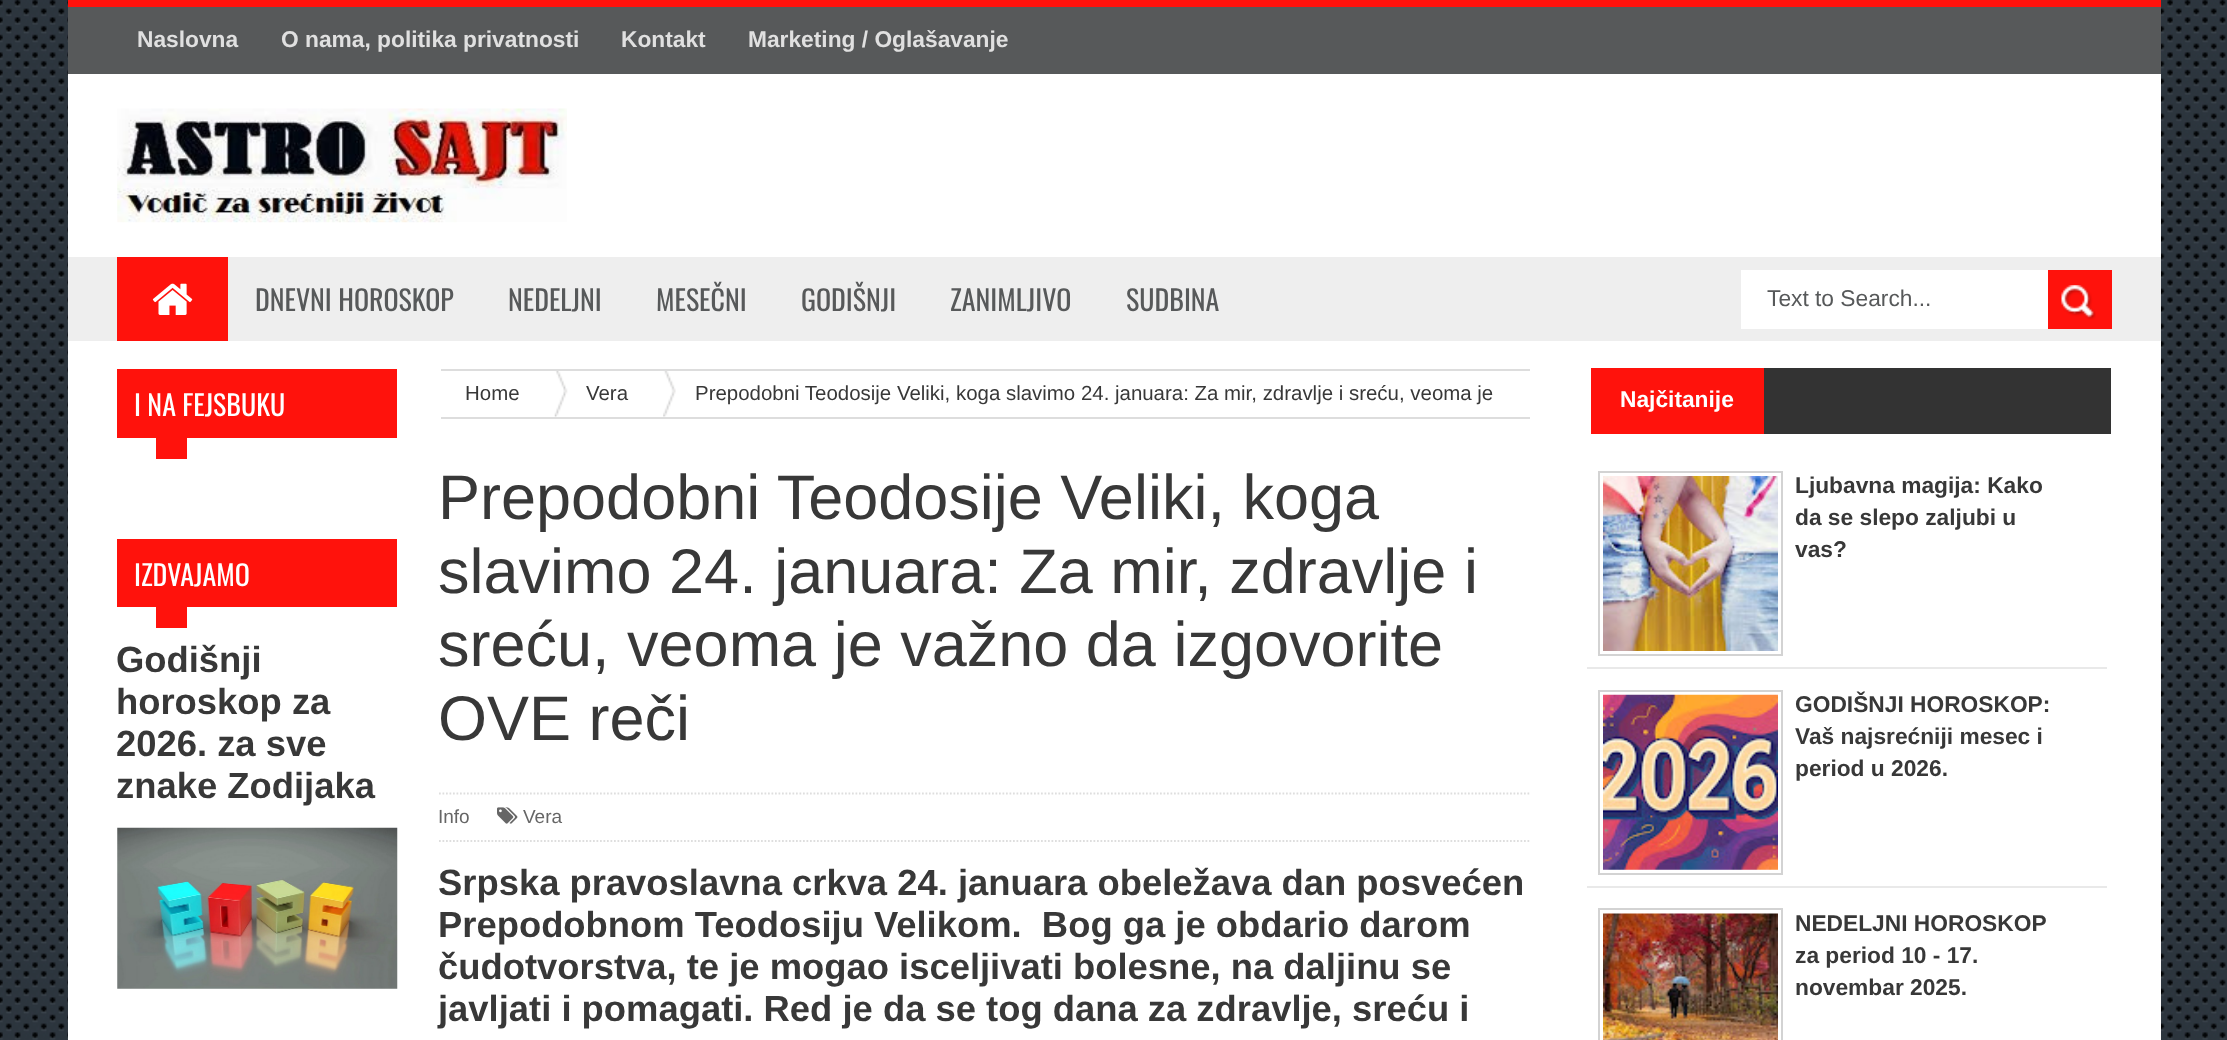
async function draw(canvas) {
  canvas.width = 2227;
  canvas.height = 1040;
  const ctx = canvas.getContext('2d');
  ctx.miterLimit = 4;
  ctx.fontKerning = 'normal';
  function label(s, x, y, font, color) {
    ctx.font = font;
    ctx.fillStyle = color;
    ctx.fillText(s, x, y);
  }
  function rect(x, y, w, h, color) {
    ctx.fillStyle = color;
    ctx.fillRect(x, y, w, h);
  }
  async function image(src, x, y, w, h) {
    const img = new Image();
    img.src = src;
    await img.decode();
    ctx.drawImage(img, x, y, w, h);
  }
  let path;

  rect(0, 0, 2227, 1040, '#fff');
  await image('assets/img1.png', 0, 0, 2227, 1040);
  rect(68, 74, 2093, 966, '#fff');
  rect(68, 7, 2093, 67, '#57595a');
  rect(68, 0, 2093, 7, '#ff120c');
  label('Naslovna', 137, 47, 'bold 22.75px Liberation Sans', '#e0e0e0');
  label('O nama, politika privatnosti', 281, 47, 'bold 22.75px Liberation Sans', '#e0e0e0');
  label('Kontakt', 621, 47, 'bold 22.75px Liberation Sans', '#e0e0e0');
  label('Marketing / Oglašavanje', 748, 47, 'bold 22.75px Liberation Sans', '#e0e0e0');
  await image('assets/img2.png', 117, 108, 450, 115);
  rect(68, 257, 2093, 84, '#eee');
  rect(117, 257, 111, 84, '#ff120c');
  await image('assets/img3.png', 152, 283, 41, 32);
  label('DNEVNI HOROSKOP', 255, 311, '28px Oswald', '#57595a');
  label('NEDELJNI', 508, 311, '28px Oswald', '#57595a');
  label('MESEČNI', 656, 311, '28px Oswald', '#57595a');
  label('GODIŠNJI', 801, 311, '28px Oswald', '#57595a');
  label('ZANIMLJIVO', 950, 311, '28px Oswald', '#57595a');
  label('SUDBINA', 1126, 311, '28px Oswald', '#57595a');
  rect(1741, 270, 307, 59, '#fff');
  label('Text to Search...', 1767, 306, '22.75px Liberation Sans', '#57595a');
  rect(2048, 270, 64, 59, '#ff120c');
  await image('assets/img4.png', 2061, 285, 35, 35);
  rect(117, 369, 280, 69, '#ff120c');
  label('I NA FEJSBUKU', 134, 416, '28px Oswald', '#fff');
  rect(156, 438, 31, 21, '#ff120c');
  rect(117, 539, 280, 68, '#ff120c');
  label('IZDVAJAMO', 134, 586, '28px Oswald', '#fff');
  rect(156, 607, 31, 21, '#ff120c');
  label('Godišnji', 116, 672, 'bold 36.4px Liberation Sans', '#383838');
  label('horoskop za', 116, 714, 'bold 36.4px Liberation Sans', '#383838');
  label('2026. za sve', 116, 756, 'bold 36.4px Liberation Sans', '#383838');
  label('znake Zodijaka', 116, 798, 'bold 36.4px Liberation Sans', '#383838');
  await image('assets/img5.png', 117, 827, 281, 162);
  rect(441, 369, 1089, 2, '#ddd');
  rect(441, 417, 1089, 2, '#ddd');
  label('Home', 465, 400, '20.45px Liberation Sans', '#383838');
  await image('assets/img6.png', 554, 371, 14, 46);
  label('Vera', 586, 400, '20.45px Liberation Sans', '#383838');
  await image('assets/img7.png', 663, 371, 13, 46);
  label('Prepodobni Teodosije Veliki, koga slavimo 24. januara: Za mir, zdravlje i sreću, veoma je', 695, 400, '20.45px Liberation Sans', '#383838');
  label('Prepodobni Teodosije Veliki, koga', 438, 519, '63px Liberation Sans', '#383838');
  label('slavimo 24. januara: Za mir, zdravlje i', 438, 593, '63px Liberation Sans', '#383838');
  label('sreću, veoma je važno da izgovorite', 438, 666, '63px Liberation Sans', '#383838');
  label('OVE reči', 438, 740, '63px Liberation Sans', '#383838');
  path = new Path2D('M439 793.5H1531');
  ctx.strokeStyle = '#dedede';
  ctx.lineWidth = 1.8;
  ctx.setLineDash([1.75, 1.75]);
  ctx.stroke(path);
  path = new Path2D('M439 841H1531');
  ctx.stroke(path);
  label('Info', 438, 823, '19px Liberation Sans', '#666');
  await image('assets/img8.png', 497, 807, 21, 17);
  label('Vera', 523, 823, '19px Liberation Sans', '#666');
  label('Srpska pravoslavna crkva 24. januara obeležava dan posvećen', 438, 895, 'bold 36.4px Liberation Sans', '#383838');
  label('Prepodobnom Teodosiju Velikom.  Bog ga je obdario darom', 438, 937, 'bold 36.4px Liberation Sans', '#383838');
  label('čudotvorstva, te je mogao isceljivati bolesne, na daljinu se', 438, 979, 'bold 36.4px Liberation Sans', '#383838');
  label('javljati i pomagati. Red je da se tog dana za zdravlje, sreću i', 438, 1021, 'bold 36.4px Liberation Sans', '#383838');
  rect(1591, 368, 173, 66, '#ff120c');
  label('Najčitanije', 1620, 407, 'bold 22.75px Liberation Sans', '#fff');
  rect(1764, 368, 347, 66, '#333');
  rect(1587, 667, 520, 2, '#e9e9e9');
  ctx.strokeStyle = '#d3d3d3';
  ctx.lineWidth = 2;
  ctx.setLineDash([]);
  ctx.strokeRect(1599, 472, 183, 183);
  await image('assets/img9.png', 1603, 476, 175, 175);
  label('Ljubavna magija: Kako', 1795, 493, 'bold 22.75px Liberation Sans', '#383838');
  label('da se slepo zaljubi u', 1795, 525, 'bold 22.75px Liberation Sans', '#383838');
  label('vas?', 1795, 557, 'bold 22.75px Liberation Sans', '#383838');
  rect(1587, 886, 520, 2, '#e9e9e9');
  ctx.strokeRect(1599, 691, 183, 183);
  await image('assets/img10.png', 1603, 694, 175, 176);
  label('GODIŠNJI HOROSKOP:', 1795, 712, 'bold 22.75px Liberation Sans', '#383838');
  label('Vaš najsrećniji mesec i', 1795, 744, 'bold 22.75px Liberation Sans', '#383838');
  label('period u 2026.', 1795, 776, 'bold 22.75px Liberation Sans', '#383838');
  ctx.strokeRect(1599, 909, 183, 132);
  await image('assets/img11.png', 1603, 913, 175, 127);
  label('NEDELJNI HOROSKOP', 1795, 931, 'bold 22.75px Liberation Sans', '#383838');
  label('za period 10 - 17.', 1795, 963, 'bold 22.75px Liberation Sans', '#383838');
  label('novembar 2025.', 1795, 995, 'bold 22.75px Liberation Sans', '#383838');
}

draw(document.querySelector('canvas'));
